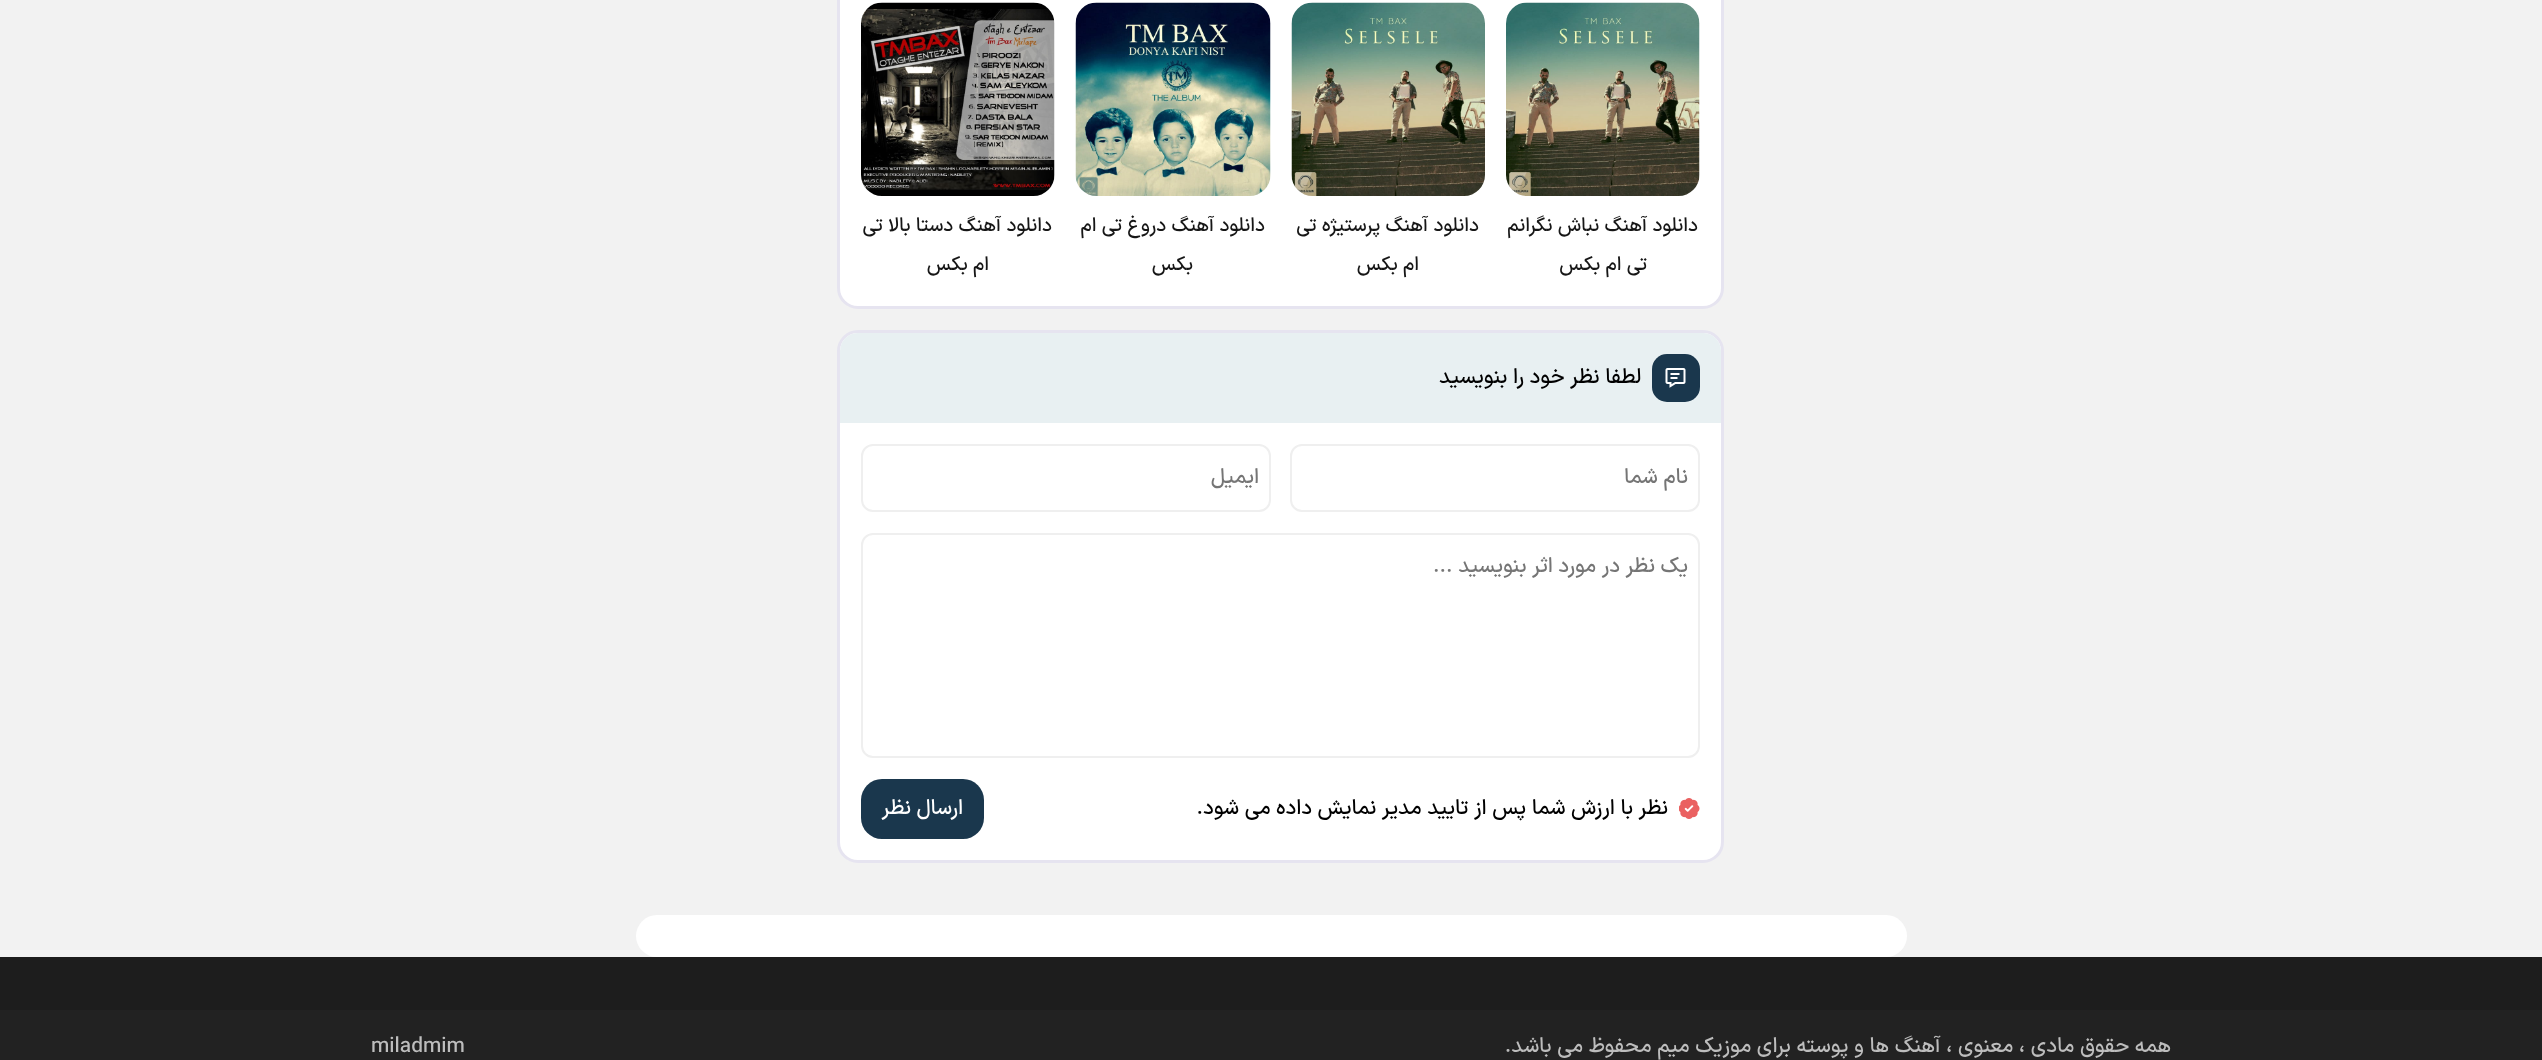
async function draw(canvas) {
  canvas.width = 2542;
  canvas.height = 1060;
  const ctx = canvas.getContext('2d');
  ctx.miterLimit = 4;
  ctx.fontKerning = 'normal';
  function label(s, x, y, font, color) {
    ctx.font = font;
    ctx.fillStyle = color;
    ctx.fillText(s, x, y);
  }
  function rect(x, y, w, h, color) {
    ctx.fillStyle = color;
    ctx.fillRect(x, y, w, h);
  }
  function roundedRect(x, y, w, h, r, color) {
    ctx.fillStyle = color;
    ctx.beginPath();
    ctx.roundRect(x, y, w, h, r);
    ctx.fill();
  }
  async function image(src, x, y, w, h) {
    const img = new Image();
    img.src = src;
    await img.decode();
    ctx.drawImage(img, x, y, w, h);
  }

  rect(0, 0, 2542, 1060, '#f2f2f2');
  ctx.fillStyle = '#fff';
  ctx.beginPath();
  ctx.roundRect(838.5, -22.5, 884, 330, 19.5);
  ctx.fill();
  ctx.strokeStyle = '#e6e4f0';
  ctx.lineWidth = 3;
  ctx.stroke();
  await image('assets/img1.png', 1506, 2, 194, 194);
  ctx.direction = 'rtl';
  label('دانلود آهنگ نباش نگرانم', 1698, 231, '500 19.5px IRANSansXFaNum', '#161616');
  label('تی ام بکس', 1647, 270, '500 19.5px IRANSansXFaNum', '#161616');
  await image('assets/img2.png', 1291, 2, 194, 194);
  label('دانلود آهنگ پرستیژه تی', 1479, 231, '500 19.5px IRANSansXFaNum', '#161616');
  label('ام بکس', 1419, 270, '500 19.5px IRANSansXFaNum', '#161616');
  await image('assets/img3.png', 1075, 2, 196, 194);
  label('دانلود آهنگ دروغ تی ام', 1265, 231, '500 19.5px IRANSansXFaNum', '#161616');
  label('بکس', 1193, 270, '500 19.5px IRANSansXFaNum', '#161616');
  await image('assets/img4.png', 861, 2, 194, 194);
  label('دانلود آهنگ دستا بالا تی', 1052, 231, '500 19.5px IRANSansXFaNum', '#161616');
  label('ام بکس', 989, 270, '500 19.5px IRANSansXFaNum', '#161616');
  ctx.fillStyle = '#fff';
  ctx.beginPath();
  ctx.roundRect(838.5, 331.5, 884, 530, 19.5);
  ctx.fill();
  ctx.stroke();
  ctx.fillStyle = '#e8f0f2';
  ctx.beginPath();
  ctx.roundRect(840, 333, 881, 90, [18, 18, 0, 0]);
  ctx.fill();
  roundedRect(1652, 354, 48, 48, 15, '#1a374d');
  await image('assets/img5.png', 1665, 368, 21, 20);
  label('لطفا نظر خود را بنویسید', 1641, 383, '500 21px IRANSansXFaNum', '#000');
  ctx.beginPath();
  ctx.roundRect(1291, 445, 408, 66, 11);
  ctx.strokeStyle = '#efefef';
  ctx.lineWidth = 2;
  ctx.stroke();
  label('نام شما', 1688, 483, '500 21px IRANSansXFaNum', '#757575');
  ctx.beginPath();
  ctx.roundRect(862, 445, 408, 66, 11);
  ctx.stroke();
  label('ایمیل', 1259, 483, '500 21px IRANSansXFaNum', '#757575');
  ctx.beginPath();
  ctx.roundRect(862, 534, 837, 223, 11);
  ctx.stroke();
  label('یک نظر در مورد اثر بنویسید ...', 1688, 572, '500 21px IRANSansXFaNum', '#757575');
  await image('assets/img6.png', 1679, 798, 21, 21);
  label('نظر با ارزش شما پس از تایید مدیر نمایش داده می شود.', 1668, 814, '500 21px IRANSansXFaNum', '#000');
  roundedRect(861, 779, 123, 60, 21, '#1a374d');
  label('ارسال نظر', 963, 814, '500 21px IRANSansXFaNum', '#fff');
  roundedRect(636, 915, 1271, 42, 21, '#fff');
  rect(0, 957, 2542, 53, '#1d1d1d');
  rect(0, 1010, 2542, 50, '#222');
  label('همه حقوق مادی ، معنوی ، آهنگ ها و پوسته برای موزیک میم محفوظ می باشد.', 2171, 1052, '500 21px IRANSansXFaNum', '#bdbdbd');
  ctx.direction = 'ltr';
  label('miladmim', 371, 1052, '500 21px IRANSansXFaNum', '#bdbdbd');
}

draw(document.querySelector('canvas'));
